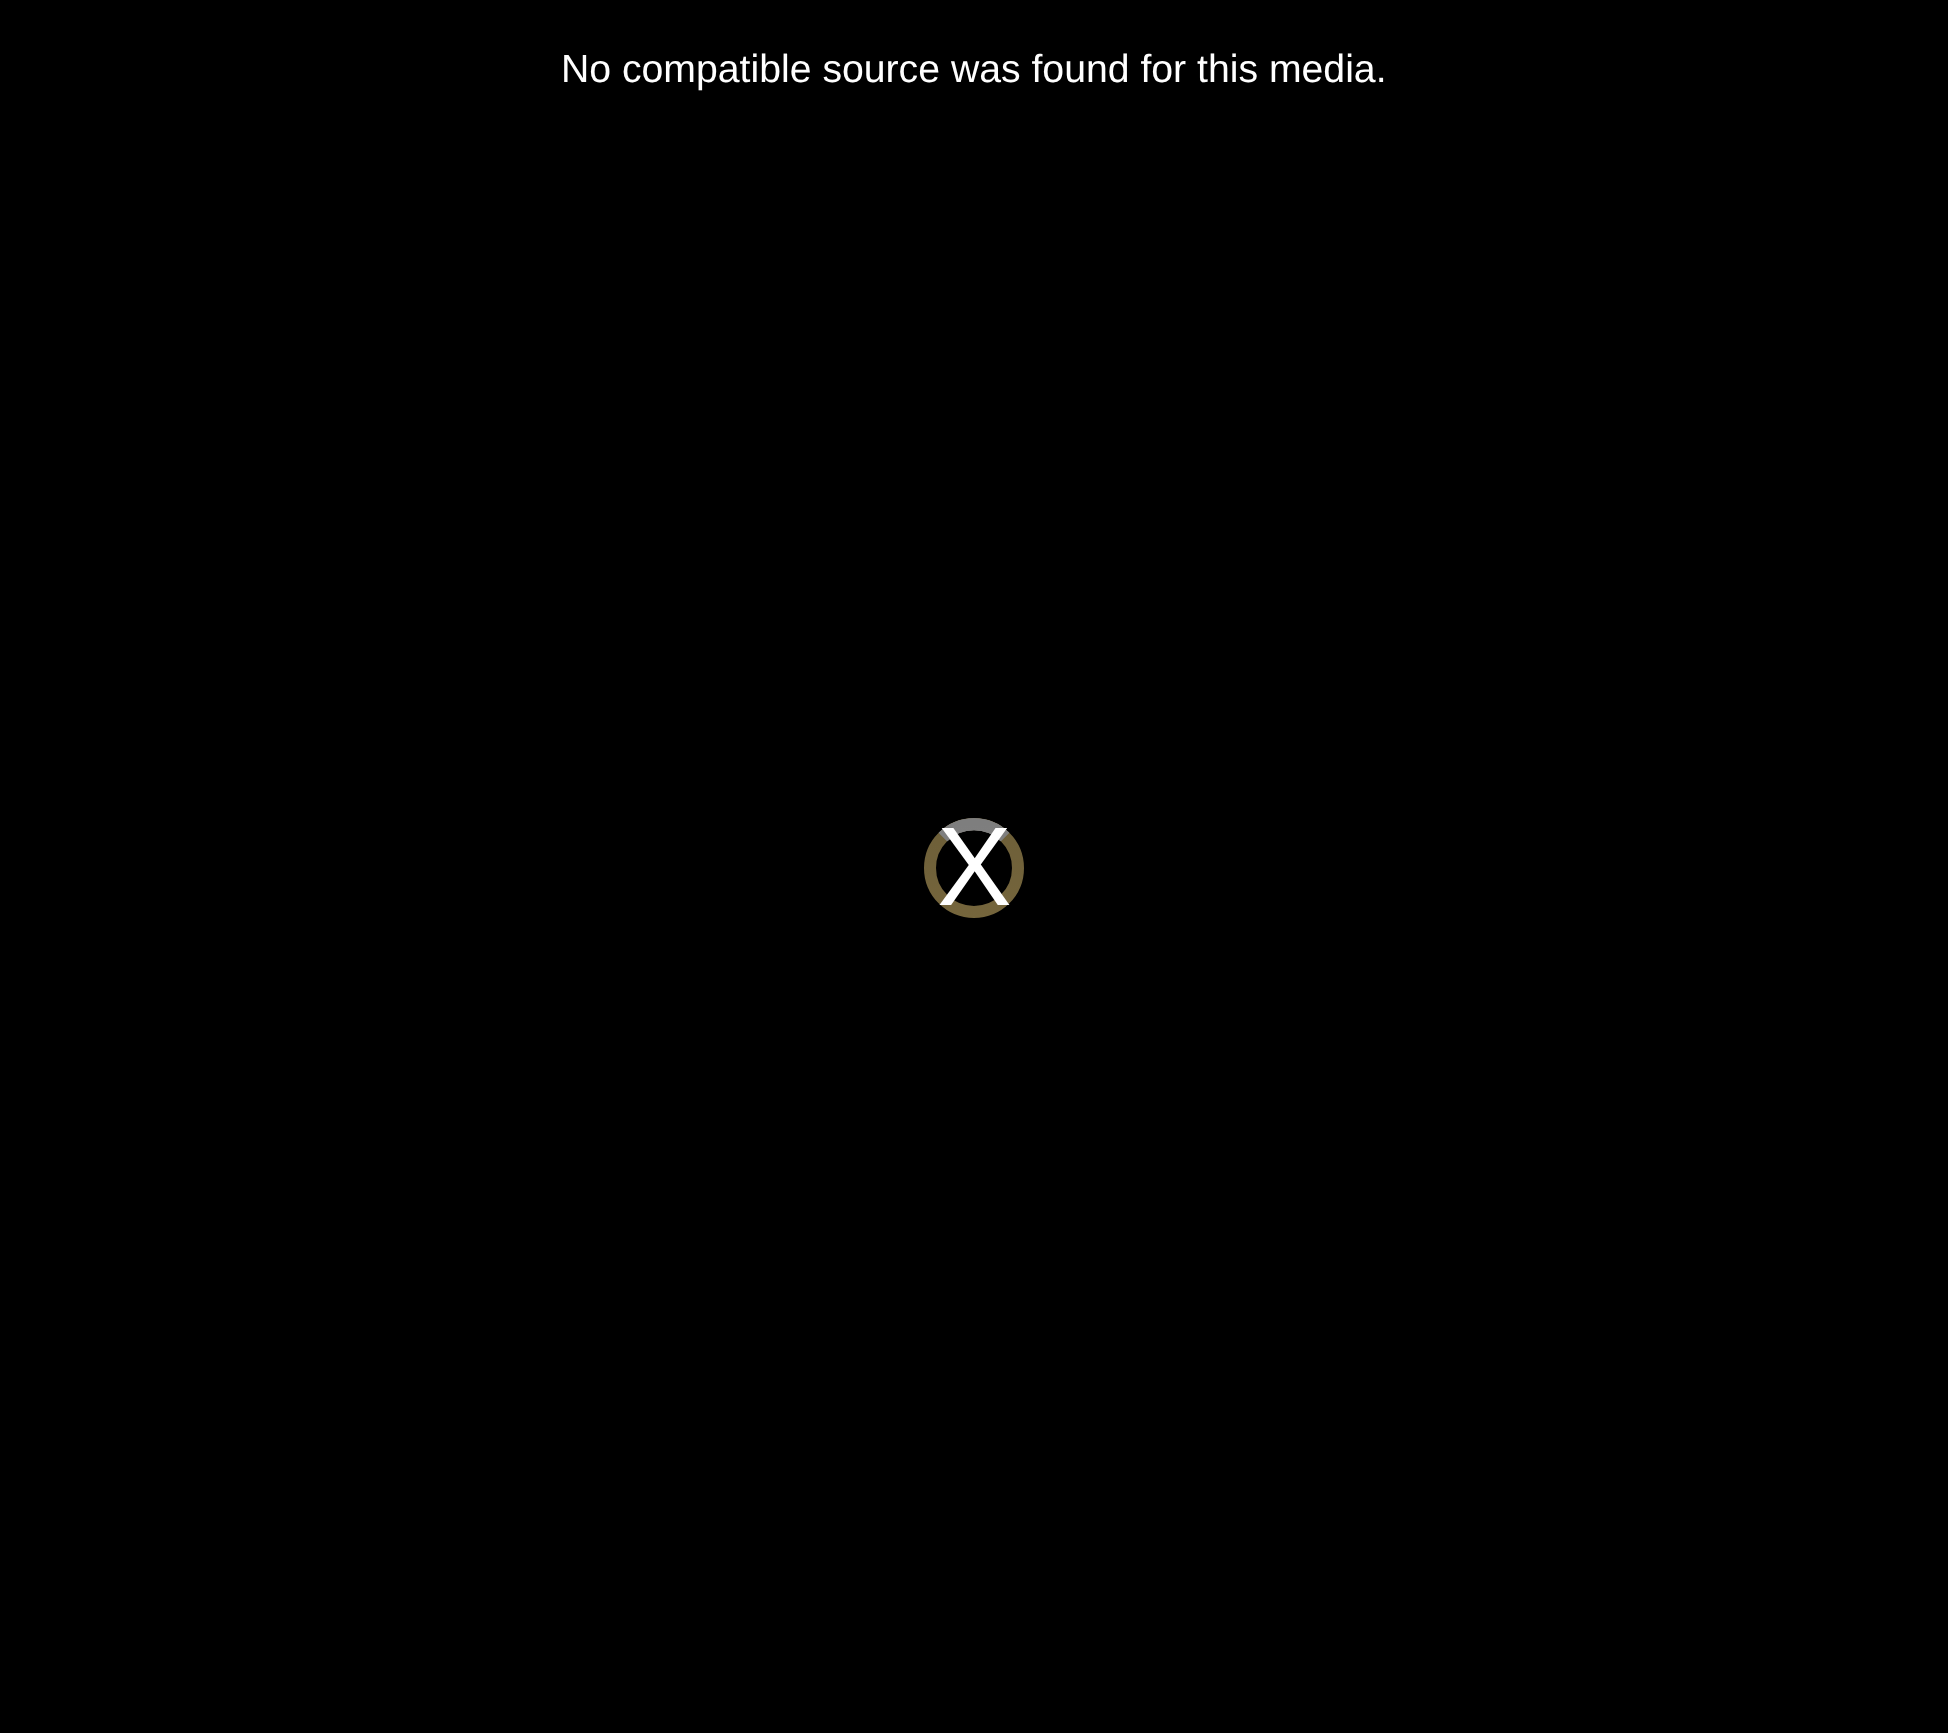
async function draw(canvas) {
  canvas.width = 1948;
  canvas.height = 1733;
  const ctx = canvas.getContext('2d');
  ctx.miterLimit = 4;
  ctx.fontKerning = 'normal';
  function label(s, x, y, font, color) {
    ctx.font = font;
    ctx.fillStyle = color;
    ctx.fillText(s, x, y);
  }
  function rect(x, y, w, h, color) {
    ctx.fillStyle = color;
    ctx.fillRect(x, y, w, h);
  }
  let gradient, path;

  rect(0, 0, 1948, 1733, '#000');
  ctx.beginPath();
  ctx.arc(974, 868, 44, 0, 2 * Math.PI);
  ctx.strokeStyle = '#bca361';
  ctx.lineWidth = 12;
  ctx.stroke();
  path = new Path2D('M943 837C960 820 988 820 1005 837');
  ctx.strokeStyle = '#d9d9d9';
  ctx.stroke(path);
  path = new Path2D('M943 837C960 820 988 820 1005 837');
  ctx.stroke(path);
  gradient = ctx.createLinearGradient(974, 0, 974, 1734);
  gradient.addColorStop(0, '#000000cc');
  gradient.addColorStop(1, '#00000000');
  ctx.fillStyle = gradient;
  ctx.fillRect(924, 818, 100, 100);
  label('No compatible source was found for this media.', 561, 82, '39.2px Liberation Sans', '#fff');
  label('X', 937, 905, '112px Liberation Sans', '#fff');
}

draw(document.querySelector('canvas'));
